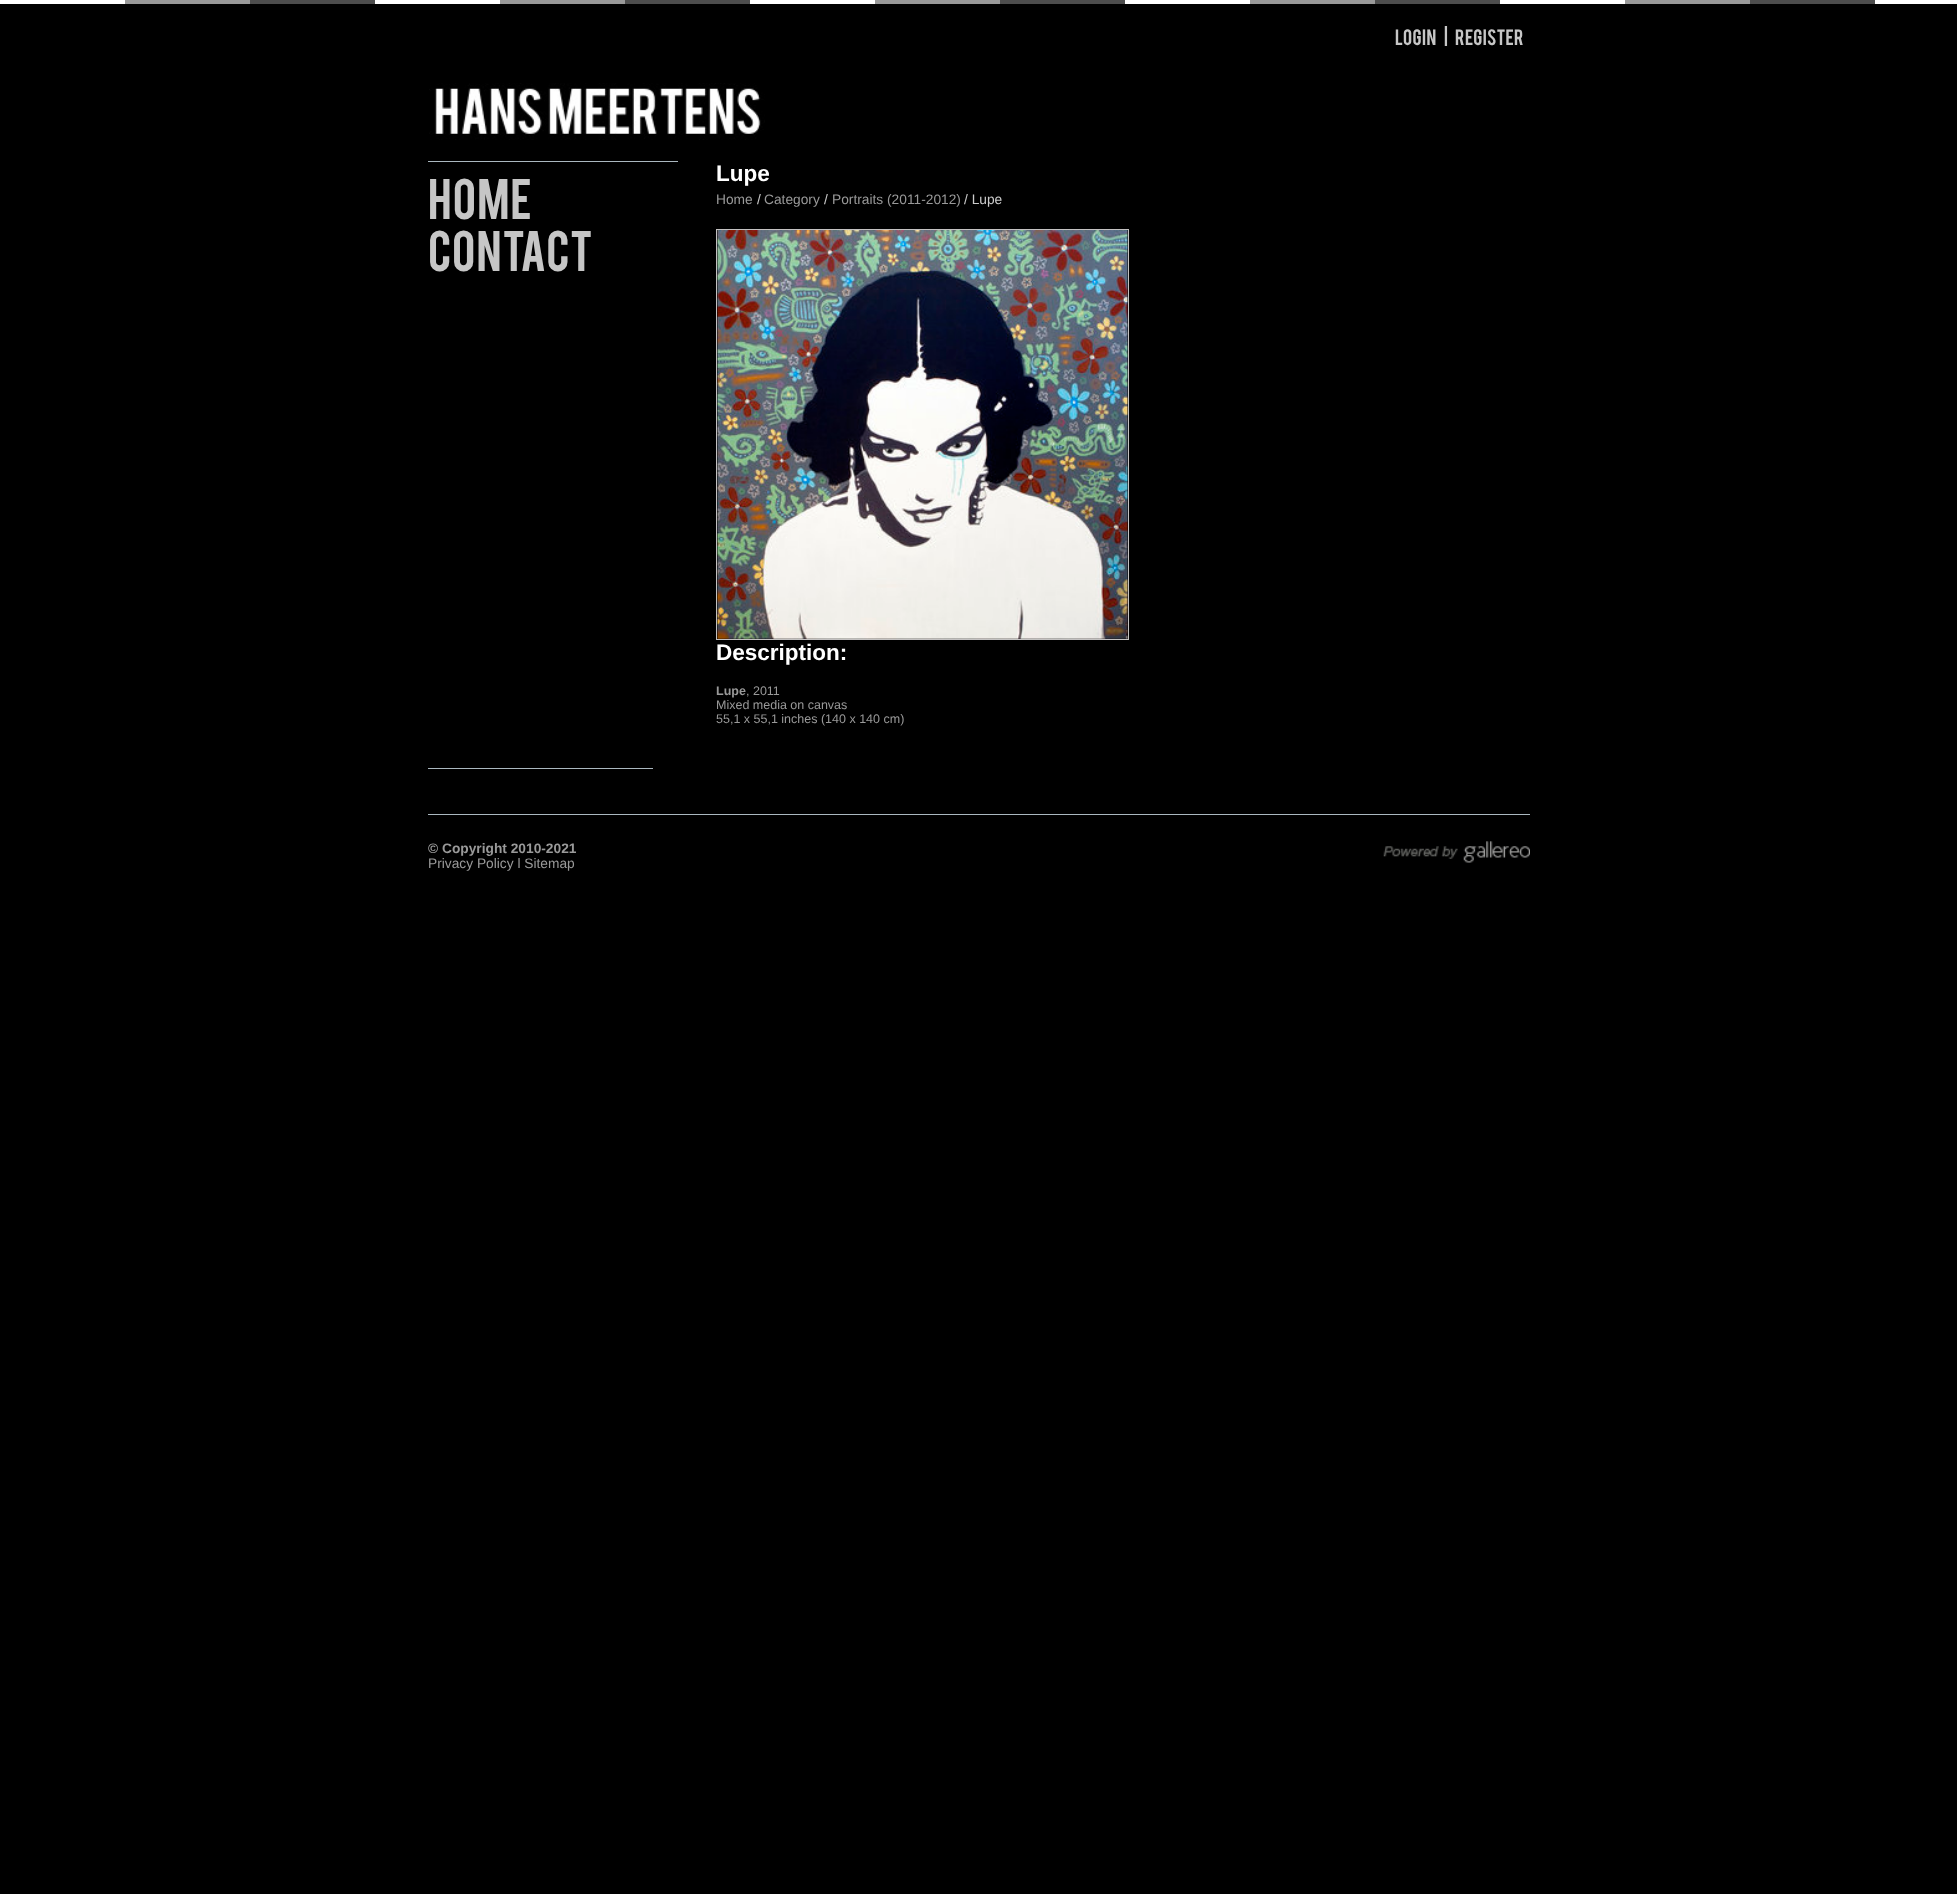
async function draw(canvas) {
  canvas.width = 1957;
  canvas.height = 1894;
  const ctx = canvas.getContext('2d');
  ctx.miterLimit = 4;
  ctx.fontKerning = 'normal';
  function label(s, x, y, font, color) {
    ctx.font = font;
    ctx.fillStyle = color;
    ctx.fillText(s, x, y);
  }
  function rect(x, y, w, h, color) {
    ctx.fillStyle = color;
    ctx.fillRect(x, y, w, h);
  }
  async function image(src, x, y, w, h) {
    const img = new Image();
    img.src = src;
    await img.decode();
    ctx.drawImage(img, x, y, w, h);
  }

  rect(0, 0, 1957, 1894, '#000');
  rect(0, 0, 125, 4, '#fff');
  rect(125, 0, 125, 4, '#999');
  rect(250, 0, 125, 4, '#4d4d4d');
  rect(375, 0, 125, 4, '#fff');
  rect(500, 0, 125, 4, '#999');
  rect(625, 0, 125, 4, '#4d4d4d');
  rect(750, 0, 125, 4, '#fff');
  rect(875, 0, 125, 4, '#999');
  rect(1000, 0, 125, 4, '#4d4d4d');
  rect(1125, 0, 125, 4, '#fff');
  rect(1250, 0, 125, 4, '#999');
  rect(1375, 0, 125, 4, '#4d4d4d');
  rect(1500, 0, 125, 4, '#fff');
  rect(1625, 0, 125, 4, '#999');
  rect(1750, 0, 125, 4, '#4d4d4d');
  rect(1875, 0, 82, 4, '#fff');
  label('Login', 1395, 45, '17.5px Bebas', '#c6c6c6');
  ctx.save();
  ctx.beginPath();
  ctx.rect(428, 26, 1102, 20);
  ctx.clip();
  label('|', 1444, 45, '17.5px Bebas', '#c6c6c6');
  ctx.restore();
  label('Register', 1455, 45, '17.5px Bebas', '#c6c6c6');
  await image('assets/img1.png', 429, 83, 336, 57);
  rect(428, 161, 250, 1, '#aab7bf');
  label('Home', 428, 219, '45px Bebas', '#c6c6c6');
  label('Contact', 428, 271, '45px Bebas', '#c6c6c6');
  label('Lupe', 716, 181, 'bold 22.5px Liberation Sans', '#fff');
  label('Home', 716, 204, '13.75px Liberation Sans', '#999');
  label('/', 757, 204, '13.75px Liberation Sans', '#ccc');
  label('Category', 764, 204, '13.75px Liberation Sans', '#999');
  label('/', 824, 204, '13.75px Liberation Sans', '#ccc');
  label('Portraits (2011-2012)', 832, 204, '13.75px Liberation Sans', '#999');
  label('/ Lupe', 964, 204, '13.75px Liberation Sans', '#ccc');
  ctx.strokeStyle = '#c3c1c1';
  ctx.strokeRect(716.5, 229.5, 412, 410);
  await image('assets/img2.png', 717, 230, 411, 409);
  label('Description:', 716, 660, 'bold 22.5px Liberation Sans', '#fff');
  label('Lupe', 716, 695, 'bold 12.5px Liberation Sans', '#999');
  label(', 2011', 746, 695, '12.5px Liberation Sans', '#999');
  label('Mixed media on canvas', 716, 709, '12.5px Liberation Sans', '#999');
  label('55,1 x 55,1 inches (140 x 140 cm)', 716, 723, '12.5px Liberation Sans', '#999');
  rect(428, 814, 1102, 1, '#aab7bf');
  rect(428, 768, 225, 1, '#aab7bf');
  ctx.save();
  ctx.beginPath();
  ctx.rect(428, 161, 1102, 754);
  ctx.clip();
  label('© Copyright 2010-2021', 428, 853, 'bold 13.75px Liberation Sans', '#999');
  ctx.restore();
  await image('assets/img3.png', 1383, 841, 147, 22);
  label('Privacy Policy l Sitemap', 428, 868, '13.75px Liberation Sans', '#999');
}

draw(document.querySelector('canvas'));
